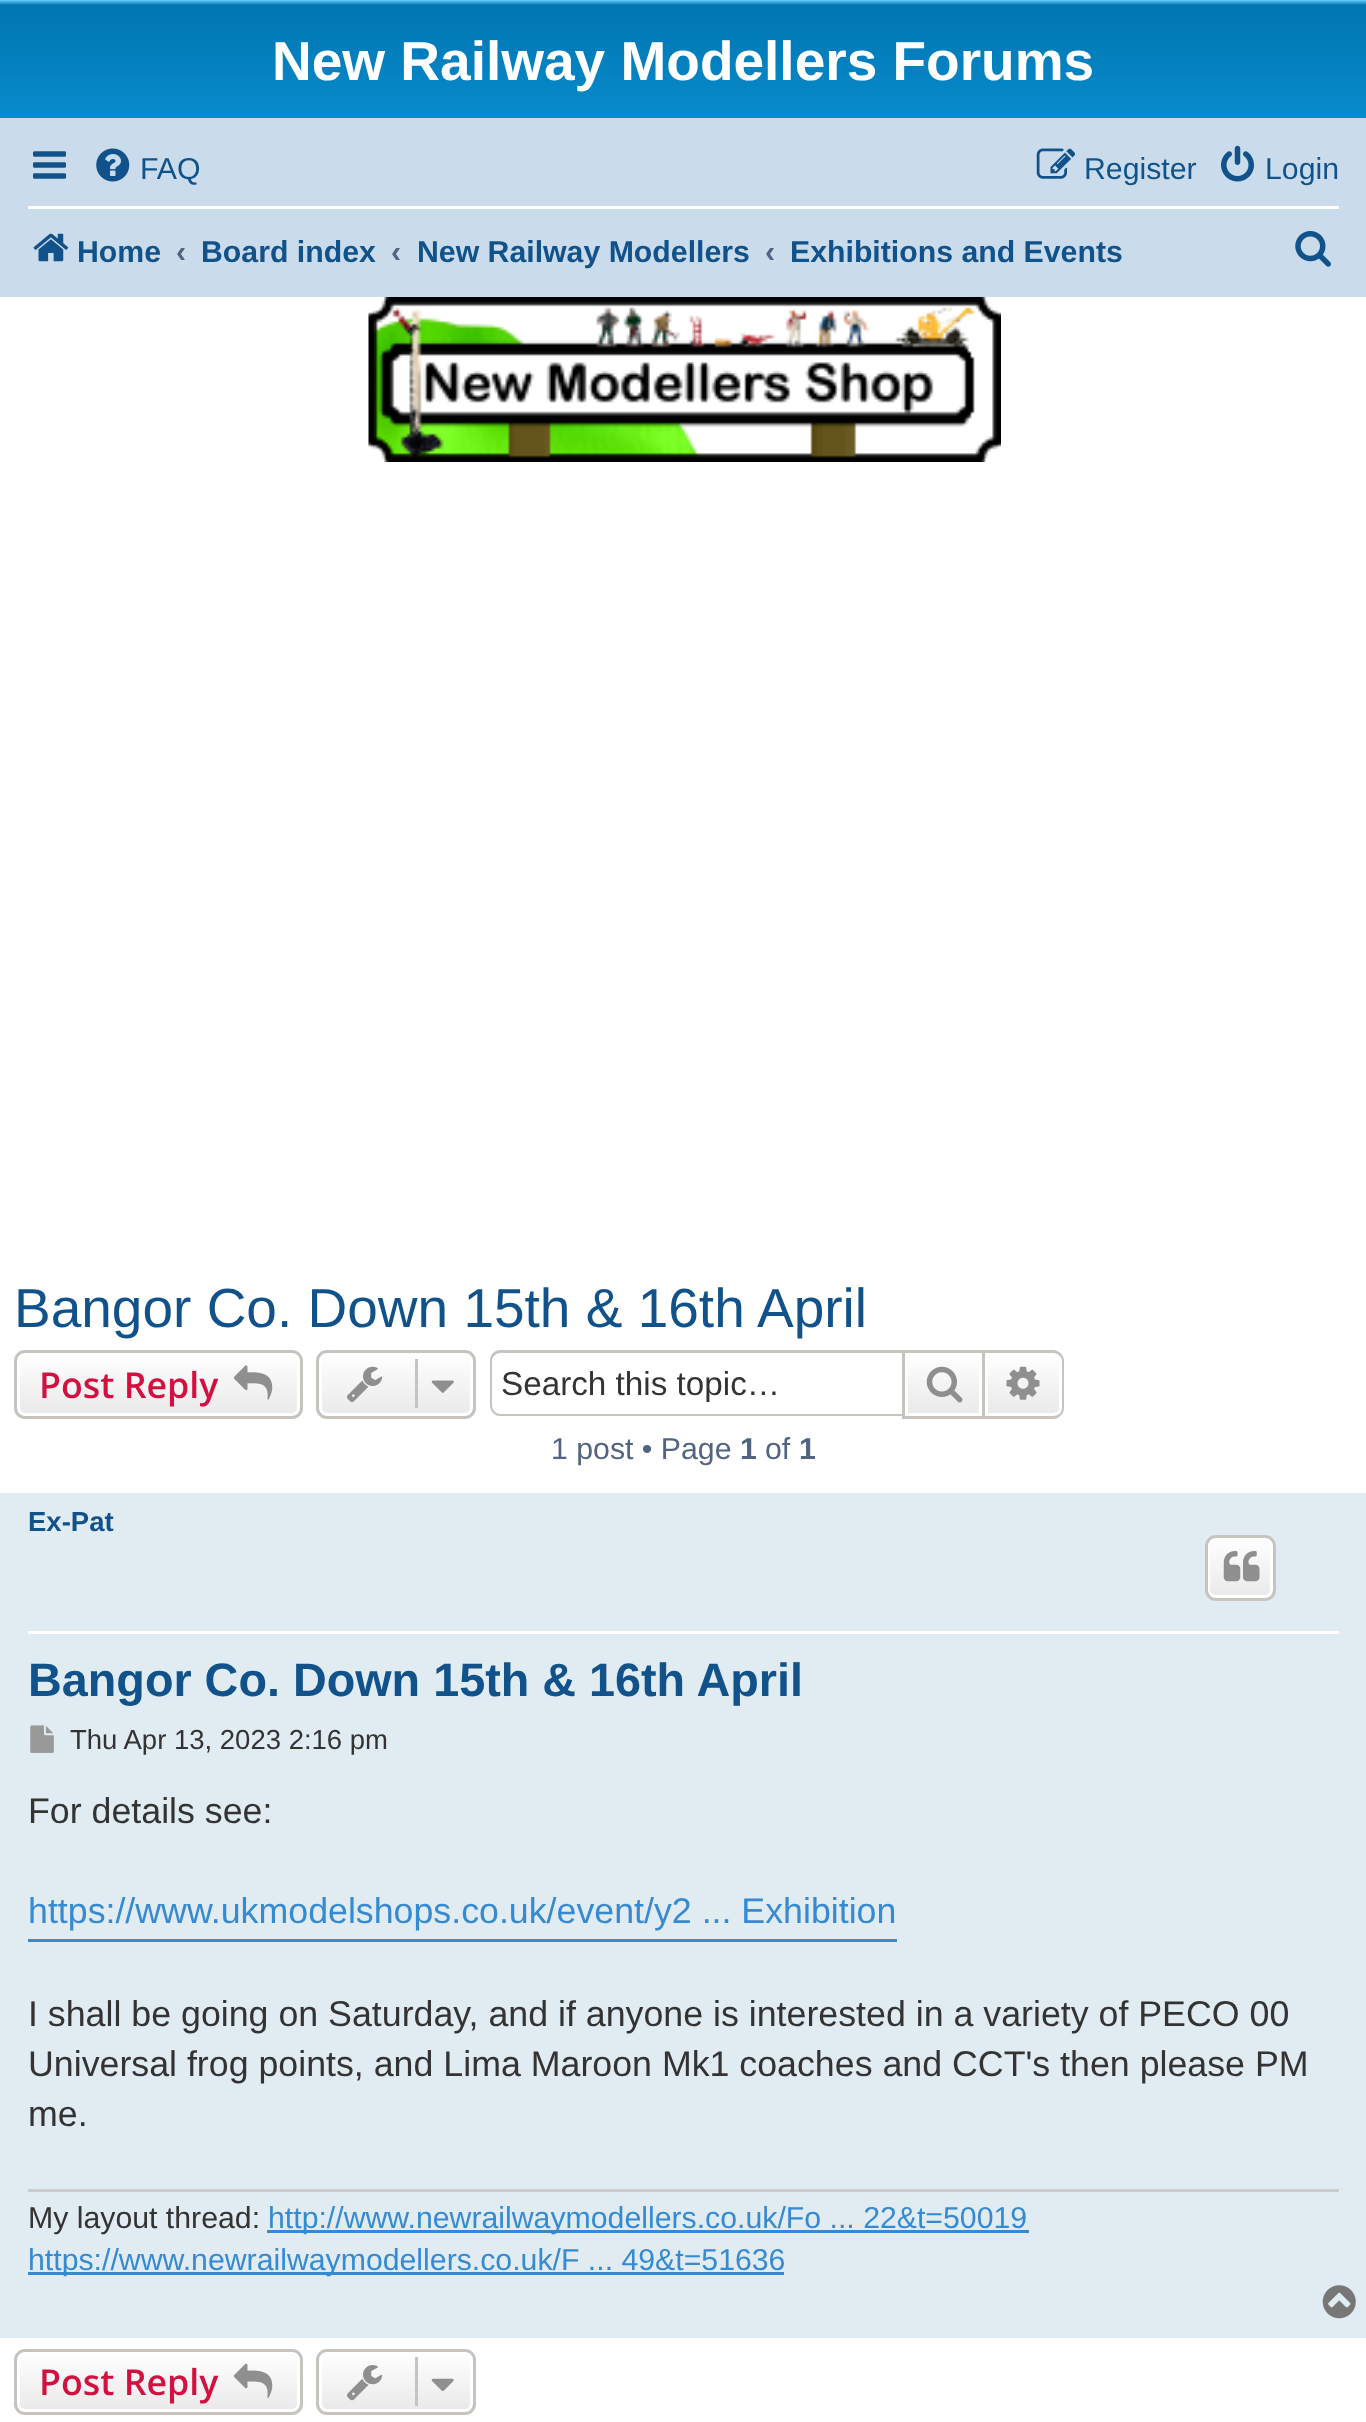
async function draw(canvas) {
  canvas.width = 1366;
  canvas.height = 2422;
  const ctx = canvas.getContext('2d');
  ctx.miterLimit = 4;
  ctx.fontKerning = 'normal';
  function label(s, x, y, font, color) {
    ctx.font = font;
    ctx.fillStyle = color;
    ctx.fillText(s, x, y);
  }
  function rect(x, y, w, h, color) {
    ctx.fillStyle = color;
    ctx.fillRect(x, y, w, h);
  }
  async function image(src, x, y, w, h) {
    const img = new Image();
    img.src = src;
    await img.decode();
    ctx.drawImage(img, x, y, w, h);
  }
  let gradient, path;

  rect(0, 0, 1366, 2422, '#fff');
  gradient = ctx.createLinearGradient(683, 0, 683, 253);
  gradient.addColorStop(0, '#6aceff');
  gradient.addColorStop(0.02, '#0076b1');
  gradient.addColorStop(1, '#12a3eb');
  ctx.fillStyle = gradient;
  ctx.fillRect(0, 0, 1366, 118);
  label('New Railway Modellers Forums', 272, 80, 'bold 55px Liberation Sans', '#fff');
  rect(0, 118, 1366, 179, '#cadceb');
  await image('assets/img1.png', 33, 151, 33, 28);
  await image('assets/img2.png', 96, 148, 34, 34);
  label('FAQ', 140, 179, '30.25px Liberation Sans', '#105289');
  await image('assets/img3.png', 1036, 148, 39, 31);
  label('Register', 1084, 179, '30.25px Liberation Sans', '#105289');
  await image('assets/img4.png', 1221, 145, 33, 37);
  label('Login', 1265, 179, '30.25px Liberation Sans', '#105289');
  rect(28, 206, 1311, 3, '#fff');
  await image('assets/img5.png', 33, 233, 36, 29);
  label('Home', 77, 262, 'bold 30.25px Liberation Sans', '#105289');
  label('‹', 176, 262, 'bold 30.25px Liberation Sans', '#536482');
  label('Board index', 201, 262, 'bold 30.25px Liberation Sans', '#105289');
  label('‹', 391, 262, 'bold 30.25px Liberation Sans', '#536482');
  label('New Railway Modellers', 417, 262, 'bold 30.25px Liberation Sans', '#105289');
  label('‹', 765, 262, 'bold 30.25px Liberation Sans', '#536482');
  label('Exhibitions and Events', 790, 262, 'bold 30.25px Liberation Sans', '#105289');
  await image('assets/img6.png', 1295, 231, 36, 36);
  await image('assets/img7.png', 368, 297, 633, 165);
  label('Bangor Co. Down 15th & 16th April', 14, 1327, '55px Liberation Sans', '#105289');
  ctx.save();
  ctx.beginPath();
  ctx.roundRect(14, 1350, 289, 69, 11);
  ctx.clip();
  gradient = ctx.createLinearGradient(158, 1353, 158, 1416);
  gradient.addColorStop(0, '#fff');
  gradient.addColorStop(1, '#e9e9e9');
  ctx.fillStyle = gradient;
  ctx.fillRect(14, 1353, 289, 63);
  ctx.restore();
  ctx.beginPath();
  ctx.roundRect(18.5, 1354.5, 280, 60, 6.5);
  ctx.strokeStyle = '#fff';
  ctx.lineWidth = 3;
  ctx.stroke();
  ctx.beginPath();
  ctx.roundRect(15.5, 1351.5, 286, 66, 9.5);
  ctx.strokeStyle = '#c7c3bf';
  ctx.stroke();
  label('Post Reply', 39, 1398, '600 35.75px Open Sans', '#d31141');
  await image('assets/img8.png', 233, 1365, 40, 35);
  ctx.save();
  ctx.beginPath();
  ctx.roundRect(316, 1350, 160, 69, 11);
  ctx.clip();
  gradient = ctx.createLinearGradient(396, 1353, 396, 1416);
  gradient.addColorStop(0, '#fff');
  gradient.addColorStop(1, '#e9e9e9');
  ctx.fillStyle = gradient;
  ctx.fillRect(316, 1353, 160, 63);
  ctx.restore();
  ctx.beginPath();
  ctx.roundRect(320.5, 1354.5, 151, 60, 6.5);
  ctx.strokeStyle = '#fff';
  ctx.stroke();
  ctx.beginPath();
  ctx.roundRect(317.5, 1351.5, 157, 66, 9.5);
  ctx.strokeStyle = '#c7c3bf';
  ctx.stroke();
  await image('assets/img9.png', 347, 1366, 36, 36);
  rect(415, 1359, 3, 49, '#c7c3bf');
  await image('assets/img10.png', 431, 1380, 23, 13);
  path = new Path2D('M500 1350H902V1416H500C494 1416 490 1411 490 1405V1361C490 1355 494 1350 500 1350ZM500 1353H902V1414H500C496 1414 492 1410 492 1405V1361C492 1357 496 1353 500 1353Z');
  ctx.fill(path, 'evenodd');
  label('Search this topic…', 501, 1395, '33.25px Liberation Sans', '#333');
  gradient = ctx.createLinearGradient(943, 1353, 943, 1416);
  gradient.addColorStop(0, '#fff');
  gradient.addColorStop(1, '#e9e9e9');
  ctx.fillStyle = gradient;
  ctx.fillRect(908, 1360, 71, 53);
  ctx.strokeRect(903.5, 1351.5, 80, 66);
  await image('assets/img11.png', 926, 1366, 37, 37);
  gradient = ctx.createLinearGradient(1023, 1353, 1023, 1416);
  gradient.addColorStop(0, '#fff');
  gradient.addColorStop(1, '#e9e9e9');
  ctx.fillStyle = gradient;
  ctx.beginPath();
  ctx.roundRect(986.5, 1354.5, 74, 60, [0, 6.5, 6.5, 0]);
  ctx.fill();
  ctx.strokeStyle = '#fff';
  ctx.stroke();
  ctx.fillStyle = '#c7c3bf';
  path = new Path2D('M984 1350H1053C1059 1350 1064 1355 1064 1361V1408C1064 1414 1059 1419 1053 1419H984ZM984 1353H1053C1058 1353 1062 1357 1062 1361V1408C1062 1413 1058 1416 1053 1416H984Z');
  ctx.fill(path, 'evenodd');
  await image('assets/img12.png', 1006, 1366, 34, 34);
  label('1 post • Page', 551, 1459, '30.25px Liberation Sans', '#536482');
  label('1', 740, 1459, 'bold 30.25px Liberation Sans', '#536482');
  label('of', 765, 1459, '30.25px Liberation Sans', '#536482');
  label('1', 799, 1459, 'bold 30.25px Liberation Sans', '#536482');
  rect(0, 1493, 1366, 845, '#e1ebf2');
  rect(28, 1631, 1311, 3, '#fff');
  label('Ex-Pat', 28, 1531, 'bold 27.5px Liberation Sans', '#105289');
  ctx.save();
  ctx.beginPath();
  ctx.roundRect(1205, 1535, 71, 66, 11);
  ctx.clip();
  gradient = ctx.createLinearGradient(1240, 1537, 1240, 1598);
  gradient.addColorStop(0, '#fff');
  gradient.addColorStop(1, '#e9e9e9');
  ctx.fillStyle = gradient;
  ctx.fillRect(1205, 1537, 71, 61);
  ctx.restore();
  ctx.beginPath();
  ctx.roundRect(1208.5, 1538.5, 63, 58, 6.5);
  ctx.stroke();
  ctx.beginPath();
  ctx.roundRect(1206.5, 1536.5, 68, 63, 9.5);
  ctx.strokeStyle = '#c7c3bf';
  ctx.stroke();
  await image('assets/img13.png', 1223, 1551, 37, 31);
  label('Bangor Co. Down 15th & 16th April', 28, 1696, 'bold 46.75px Liberation Sans', '#105289');
  await image('assets/img14.png', 30, 1725, 24, 28);
  label('Thu Apr 13, 2023 2:16 pm', 70, 1749, '27.5px Liberation Sans', '#333');
  label('For details see:', 28, 1823, '35.75px Liberation Sans', '#333');
  rect(28, 1939, 869, 3, '#368ad2');
  label('https://www.ukmodelshops.co.uk/event/y2 ... Exhibition', 28, 1923, '35.75px Liberation Sans', '#368ad2');
  label('I shall be going on Saturday, and if anyone is interested in a variety of PECO 00', 28, 2026, '35.75px Liberation Sans', '#333');
  label('Universal frog points, and Lima Maroon Mk1 coaches and CCT\'s then please PM', 28, 2076, '35.75px Liberation Sans', '#333');
  label('me.', 28, 2126, '35.75px Liberation Sans', '#333');
  rect(28, 2189, 1311, 3, '#ccc');
  label('My layout thread:', 28, 2228, '30.25px Liberation Sans', '#333');
  rect(267, 2230, 762, 3, '#368ad2');
  label('http://www.newrailwaymodellers.co.uk/Fo ... 22&t=50019', 268, 2228, '30.25px Liberation Sans', '#368ad2');
  rect(28, 2272, 756, 3, '#368ad2');
  label('https://www.newrailwaymodellers.co.uk/F ... 49&t=51636', 28, 2270, '30.25px Liberation Sans', '#368ad2');
  await image('assets/img15.png', 1322, 2285, 34, 34);
  ctx.save();
  ctx.beginPath();
  ctx.roundRect(14, 2349, 289, 66, 11);
  ctx.clip();
  gradient = ctx.createLinearGradient(158, 2351, 158, 2412);
  gradient.addColorStop(0, '#fff');
  gradient.addColorStop(1, '#e9e9e9');
  ctx.fillStyle = gradient;
  ctx.fillRect(14, 2351, 289, 61);
  ctx.restore();
  ctx.beginPath();
  ctx.roundRect(18.5, 2352.5, 280, 58, 6.5);
  ctx.strokeStyle = '#fff';
  ctx.stroke();
  ctx.beginPath();
  ctx.roundRect(15.5, 2350.5, 286, 63, 9.5);
  ctx.strokeStyle = '#c7c3bf';
  ctx.stroke();
  label('Post Reply', 39, 2395, '600 35.75px Open Sans', '#d31141');
  await image('assets/img16.png', 233, 2363, 40, 35);
  ctx.save();
  ctx.beginPath();
  ctx.roundRect(316, 2349, 160, 66, 11);
  ctx.clip();
  gradient = ctx.createLinearGradient(396, 2351, 396, 2412);
  gradient.addColorStop(0, '#fff');
  gradient.addColorStop(1, '#e9e9e9');
  ctx.fillStyle = gradient;
  ctx.fillRect(316, 2351, 160, 61);
  ctx.restore();
  ctx.beginPath();
  ctx.roundRect(320.5, 2352.5, 151, 58, 6.5);
  ctx.strokeStyle = '#fff';
  ctx.stroke();
  ctx.beginPath();
  ctx.roundRect(317.5, 2350.5, 157, 63, 9.5);
  ctx.strokeStyle = '#c7c3bf';
  ctx.stroke();
  await image('assets/img17.png', 347, 2365, 36, 36);
  rect(415, 2357, 3, 49, '#c7c3bf');
  await image('assets/img18.png', 431, 2378, 23, 14);
}

draw(document.querySelector('canvas'));
